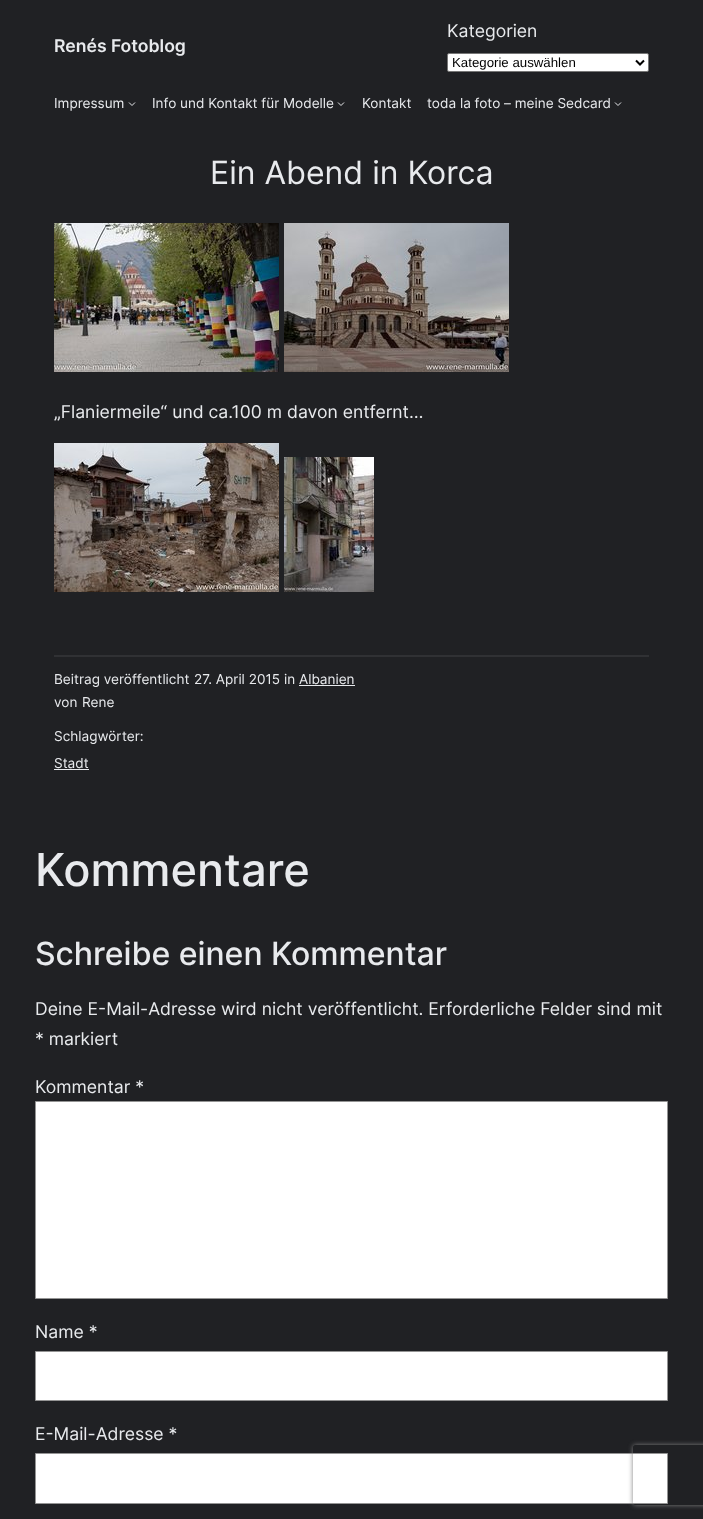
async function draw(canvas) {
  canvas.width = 703;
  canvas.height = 1519;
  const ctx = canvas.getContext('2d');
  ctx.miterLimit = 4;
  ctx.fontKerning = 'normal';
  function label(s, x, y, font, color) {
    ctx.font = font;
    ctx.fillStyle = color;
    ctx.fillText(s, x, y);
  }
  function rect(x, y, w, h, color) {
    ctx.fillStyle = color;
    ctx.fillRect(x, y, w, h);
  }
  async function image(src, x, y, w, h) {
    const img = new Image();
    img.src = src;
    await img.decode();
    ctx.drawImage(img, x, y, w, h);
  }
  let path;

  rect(0, 0, 703, 1519, '#202124');
  label('Renés Fotoblog', 54, 52, '600 17.6px Inter', '#e8eaed');
  label('Kategorien', 447, 37, '17.6px Inter', '#e8eaed');
  ctx.fillStyle = '#fff';
  ctx.beginPath();
  ctx.roundRect(447.5, 53.5, 201, 18, 1.5);
  ctx.fill();
  ctx.strokeStyle = '#767676';
  ctx.stroke();
  path = new Path2D('M636 60.5L640 64.5L644 60.5');
  ctx.strokeStyle = '#000';
  ctx.lineWidth = 2;
  ctx.stroke(path);
  label('Kategorie auswählen', 452, 67, '13.25px Liberation Sans', '#000');
  label('Impressum', 54, 108, '13.6px Inter', '#e8eaed');
  path = new Path2D('M129 102.5L132 105.5L135 102.5');
  ctx.strokeStyle = '#e8eaed';
  ctx.lineWidth = 1;
  ctx.stroke(path);
  label('Info und Kontakt für Modelle', 152, 108, '13.6px Inter', '#e8eaed');
  path = new Path2D('M338 102.5L341 105.5L344 102.5');
  ctx.stroke(path);
  label('Kontakt', 362, 108, '13.6px Inter', '#e8eaed');
  label('toda la foto – meine Sedcard', 427, 108, '13.6px Inter', '#e8eaed');
  path = new Path2D('M615 102.5L618 105.5L621 102.5');
  ctx.stroke(path);
  label('Ein Abend in Korca', 210, 184, '32px Inter', '#e8eaed');
  await image('assets/img1.png', 54, 223, 225, 149);
  await image('assets/img2.png', 284, 223, 225, 149);
  label('„Flaniermeile“ und ca.100 m davon entfernt…', 54, 418, '17.6px Inter', '#e8eaed');
  await image('assets/img3.png', 54, 443, 225, 149);
  await image('assets/img4.png', 284, 457, 90, 135);
  rect(54, 655, 595, 2, '#303134');
  label('Beitrag veröffentlicht', 54, 684, '13.6px Inter', '#e8eaed');
  label('27. April 2015', 194, 684, '13.6px Inter', '#e8eaed');
  label('in', 284, 684, '13.6px Inter', '#e8eaed');
  label('Albanien', 299, 684, '13.6px Inter', '#e8eaed');
  rect(299, 685, 56, 1, '#e8eaed');
  label('von', 54, 707, '13.6px Inter', '#e8eaed');
  label('Rene', 82, 707, '13.6px Inter', '#e8eaed');
  label('Schlagwörter:', 54, 741, '13.6px Inter', '#e8eaed');
  label('Stadt', 54, 768, '13.6px Inter', '#e8eaed');
  rect(54, 769, 35, 1, '#e8eaed');
  label('Kommentare', 35, 886, '500 45.25px Inter', '#e8eaed');
  label('Schreibe einen Kommentar', 35, 965, '500 32px Inter', '#e8eaed');
  label('Deine E-Mail-Adresse wird nicht veröffentlicht. Erforderliche Felder sind mit', 35, 1015, '17.6px Inter', '#e8eaed');
  label('* markiert', 35, 1045, '17.6px Inter', '#e8eaed');
  label('Kommentar *', 35, 1093, '17.6px Inter', '#e8eaed');
  ctx.fillStyle = '#fff';
  ctx.beginPath();
  ctx.rect(35.5, 1101.5, 632, 197);
  ctx.fill();
  ctx.strokeStyle = '#949494';
  ctx.stroke();
  label('Name *', 35, 1338, '17.6px Inter', '#e8eaed');
  ctx.fillStyle = '#fff';
  ctx.beginPath();
  ctx.rect(35.5, 1351.5, 632, 49);
  ctx.fill();
  ctx.stroke();
  label('E-Mail-Adresse *', 35, 1440, '17.6px Inter', '#e8eaed');
  ctx.fillStyle = '#fff';
  ctx.beginPath();
  ctx.rect(35.5, 1453.5, 632, 50);
  ctx.fill();
  ctx.stroke();
  ctx.save();
  path = new Path2D('M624 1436H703V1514H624ZM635 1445H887C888 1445 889 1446 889 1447V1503C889 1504 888 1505 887 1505H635C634 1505 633 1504 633 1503V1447C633 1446 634 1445 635 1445Z');
  ctx.clip(path, 'evenodd');
  ctx.fillStyle = '#808080';
  ctx.filter = 'blur(2.5px)';
  ctx.beginPath();
  ctx.roundRect(633, 1445, 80, 60, 2);
  ctx.fill();
  ctx.filter = 'none';
  ctx.restore();
}

draw(document.querySelector('canvas'));
